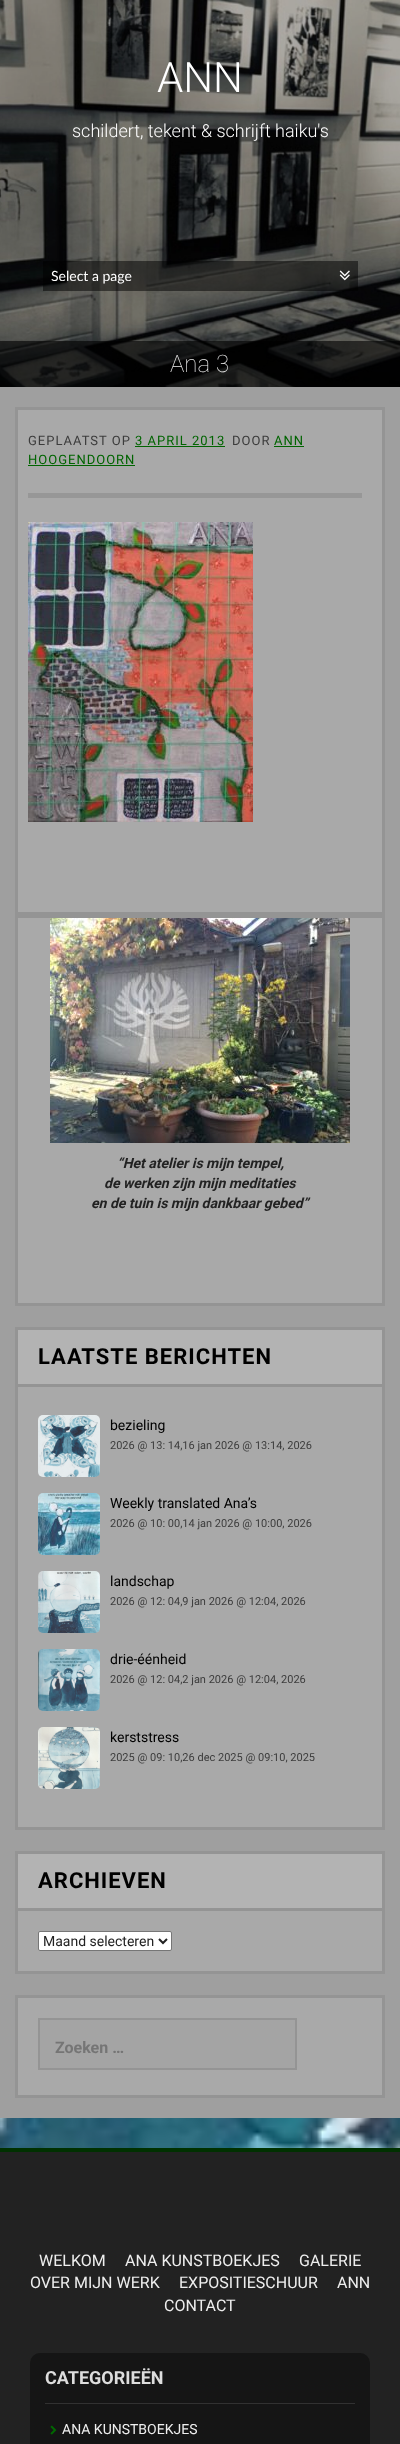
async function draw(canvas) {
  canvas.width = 400;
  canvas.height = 2444;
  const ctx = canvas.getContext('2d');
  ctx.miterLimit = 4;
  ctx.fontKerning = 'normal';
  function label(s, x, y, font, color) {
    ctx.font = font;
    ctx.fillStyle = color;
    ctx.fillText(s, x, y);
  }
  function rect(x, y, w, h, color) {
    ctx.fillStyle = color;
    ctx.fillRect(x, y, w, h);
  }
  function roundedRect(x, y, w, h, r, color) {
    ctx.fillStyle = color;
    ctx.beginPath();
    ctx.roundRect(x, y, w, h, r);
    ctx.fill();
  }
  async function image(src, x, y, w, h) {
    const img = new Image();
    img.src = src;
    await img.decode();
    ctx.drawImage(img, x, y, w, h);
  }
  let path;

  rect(0, 0, 400, 2444, '#fff');
  await image('assets/img1.png', 0, 2118, 400, 30);
  await image('assets/img2.png', 0, 0, 400, 387);
  label('ANN', 157, 92, '300 42px Roboto', '#fff');
  label('schildert, tekent & schrijft haiku\'s', 72, 137, '300 18px Roboto', '#fff');
  rect(43, 261, 315, 30, '#00000080');
  label('Select a page', 51, 281, '14px Lato', '#fff');
  await image('assets/img3.png', 339, 270, 11, 11);
  rect(0, 341, 400, 46, '#00000099');
  label('Ana 3', 170, 372, '100 24px Roboto', '#eee');
  rect(0, 387, 400, 1731, '#9f9f9f');
  ctx.fillStyle = '#a9a9a9';
  ctx.beginPath();
  ctx.rect(16.5, 408.5, 367, 505);
  ctx.fill();
  ctx.strokeStyle = '#949494';
  ctx.lineWidth = 3;
  ctx.stroke();
  ctx.letterSpacing = '1px';
  label('GEPLAATST OP', 28, 445, '13px Roboto', '#3c3c3c');
  label('3 APRIL 2013', 135, 445, '13px Roboto', '#006400');
  rect(135, 446, 90, 1, '#006400');
  label('DOOR', 232, 445, '13px Roboto', '#3c3c3c');
  label('ANN', 274, 445, '13px Roboto', '#006400');
  rect(274, 446, 30, 1, '#006400');
  label('HOOGENDOORN', 28, 464, '13px Roboto', '#006400');
  rect(28, 465, 107, 1, '#006400');
  rect(28, 493, 334, 5, '#979797');
  await image('assets/img4.png', 28, 522, 225, 300);
  ctx.fillStyle = '#a9a9a9';
  ctx.beginPath();
  ctx.rect(16.5, 916.5, 367, 388);
  ctx.fill();
  ctx.stroke();
  await image('assets/img5.png', 50, 918, 300, 225);
  ctx.letterSpacing = '0px';
  label('“Het atelier is mijn tempel,', 117, 1168, 'italic bold 14px Roboto', '#222');
  label('de werken zijn mijn meditaties', 104, 1188, 'italic bold 14px Roboto', '#222');
  label('en de tuin is mijn dankbaar gebed”', 91, 1208, 'italic bold 14px Roboto', '#222');
  rect(18, 1387, 364, 440, '#a9a9a9');
  ctx.strokeRect(16.5, 1328.5, 367, 500);
  rect(18, 1330, 364, 54, '#b3b3b3');
  rect(18, 1384, 364, 3, '#949494');
  ctx.letterSpacing = '1px';
  label('LAATSTE BERICHTEN', 38, 1364, 'bold 22px Roboto', '#000');
  await image('assets/img6.png', 38, 1415, 62, 62);
  ctx.letterSpacing = '0px';
  label('bezieling', 110, 1430, '14px Roboto', '#000');
  label('2026 @ 13: 14,16 jan 2026 @ 13:14, 2026', 110, 1449, '11px Roboto', '#3c3c3c');
  await image('assets/img7.png', 38, 1493, 62, 62);
  label('Weekly translated Ana’s', 110, 1508, '14px Roboto', '#000');
  label('2026 @ 10: 00,14 jan 2026 @ 10:00, 2026', 110, 1527, '11px Roboto', '#3c3c3c');
  await image('assets/img8.png', 38, 1571, 62, 62);
  label('landschap', 110, 1586, '14px Roboto', '#000');
  label('2026 @ 12: 04,9 jan 2026 @ 12:04, 2026', 110, 1605, '11px Roboto', '#3c3c3c');
  await image('assets/img9.png', 38, 1649, 62, 62);
  label('drie-éénheid', 110, 1664, '14px Roboto', '#000');
  label('2026 @ 12: 04,2 jan 2026 @ 12:04, 2026', 110, 1683, '11px Roboto', '#3c3c3c');
  await image('assets/img10.png', 38, 1727, 62, 62);
  label('kerststress', 110, 1742, '14px Roboto', '#000');
  label('2025 @ 09: 10,26 dec 2025 @ 09:10, 2025', 110, 1761, '11px Roboto', '#3c3c3c');
  rect(18, 1911, 364, 60, '#a9a9a9');
  ctx.strokeRect(16.5, 1852.5, 367, 120);
  rect(18, 1854, 364, 54, '#b3b3b3');
  rect(18, 1908, 364, 3, '#949494');
  ctx.letterSpacing = '1px';
  label('ARCHIEVEN', 38, 1888, 'bold 22px Roboto', '#000');
  ctx.fillStyle = '#fff';
  ctx.beginPath();
  ctx.roundRect(38.5, 1931.5, 133, 19, 1.5);
  ctx.fill();
  ctx.strokeStyle = '#767676';
  ctx.lineWidth = 1;
  ctx.stroke();
  path = new Path2D('M159 1939L163 1943L167 1939');
  ctx.strokeStyle = '#222';
  ctx.lineWidth = 2;
  ctx.stroke(path);
  ctx.letterSpacing = '0px';
  label('Maand selecteren', 43, 1946, '14px Roboto', '#222');
  ctx.fillStyle = '#a9a9a9';
  ctx.beginPath();
  ctx.rect(16.5, 1996.5, 367, 100);
  ctx.fill();
  ctx.strokeStyle = '#949494';
  ctx.lineWidth = 3;
  ctx.stroke();
  ctx.fillStyle = '#a4a4a4';
  ctx.beginPath();
  ctx.rect(39, 2019, 257, 50);
  ctx.fill();
  ctx.lineWidth = 2;
  ctx.stroke();
  label('Zoeken …', 55, 2053, 'bold 16px Roboto', '#757575');
  rect(0, 2152, 400, 292, '#222');
  rect(0, 2148, 400, 4, '#003100');
  label('WELKOM', 39, 2266, '16px Roboto', '#eee');
  label('ANA KUNSTBOEKJES', 125, 2266, '16px Roboto', '#eee');
  label('GALERIE', 299, 2266, '16px Roboto', '#eee');
  label('OVER MIJN WERK', 30, 2288, '16px Roboto', '#eee');
  label('EXPOSITIESCHUUR', 179, 2288, '16px Roboto', '#eee');
  label('ANN', 337, 2288, '16px Roboto', '#eee');
  label('CONTACT', 164, 2311, '16px Roboto', '#eee');
  roundedRect(30, 2353, 340, 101, 10, '#151515');
  rect(45, 2403, 310, 1, '#313131');
  label('CATEGORIEËN', 45, 2384, 'bold 18px Roboto', '#ddd');
  await image('assets/img11.png', 50, 2425, 7, 10);
  label('ANA KUNSTBOEKJES', 62, 2434, '14px Roboto', '#eee');
}

draw(document.querySelector('canvas'));
